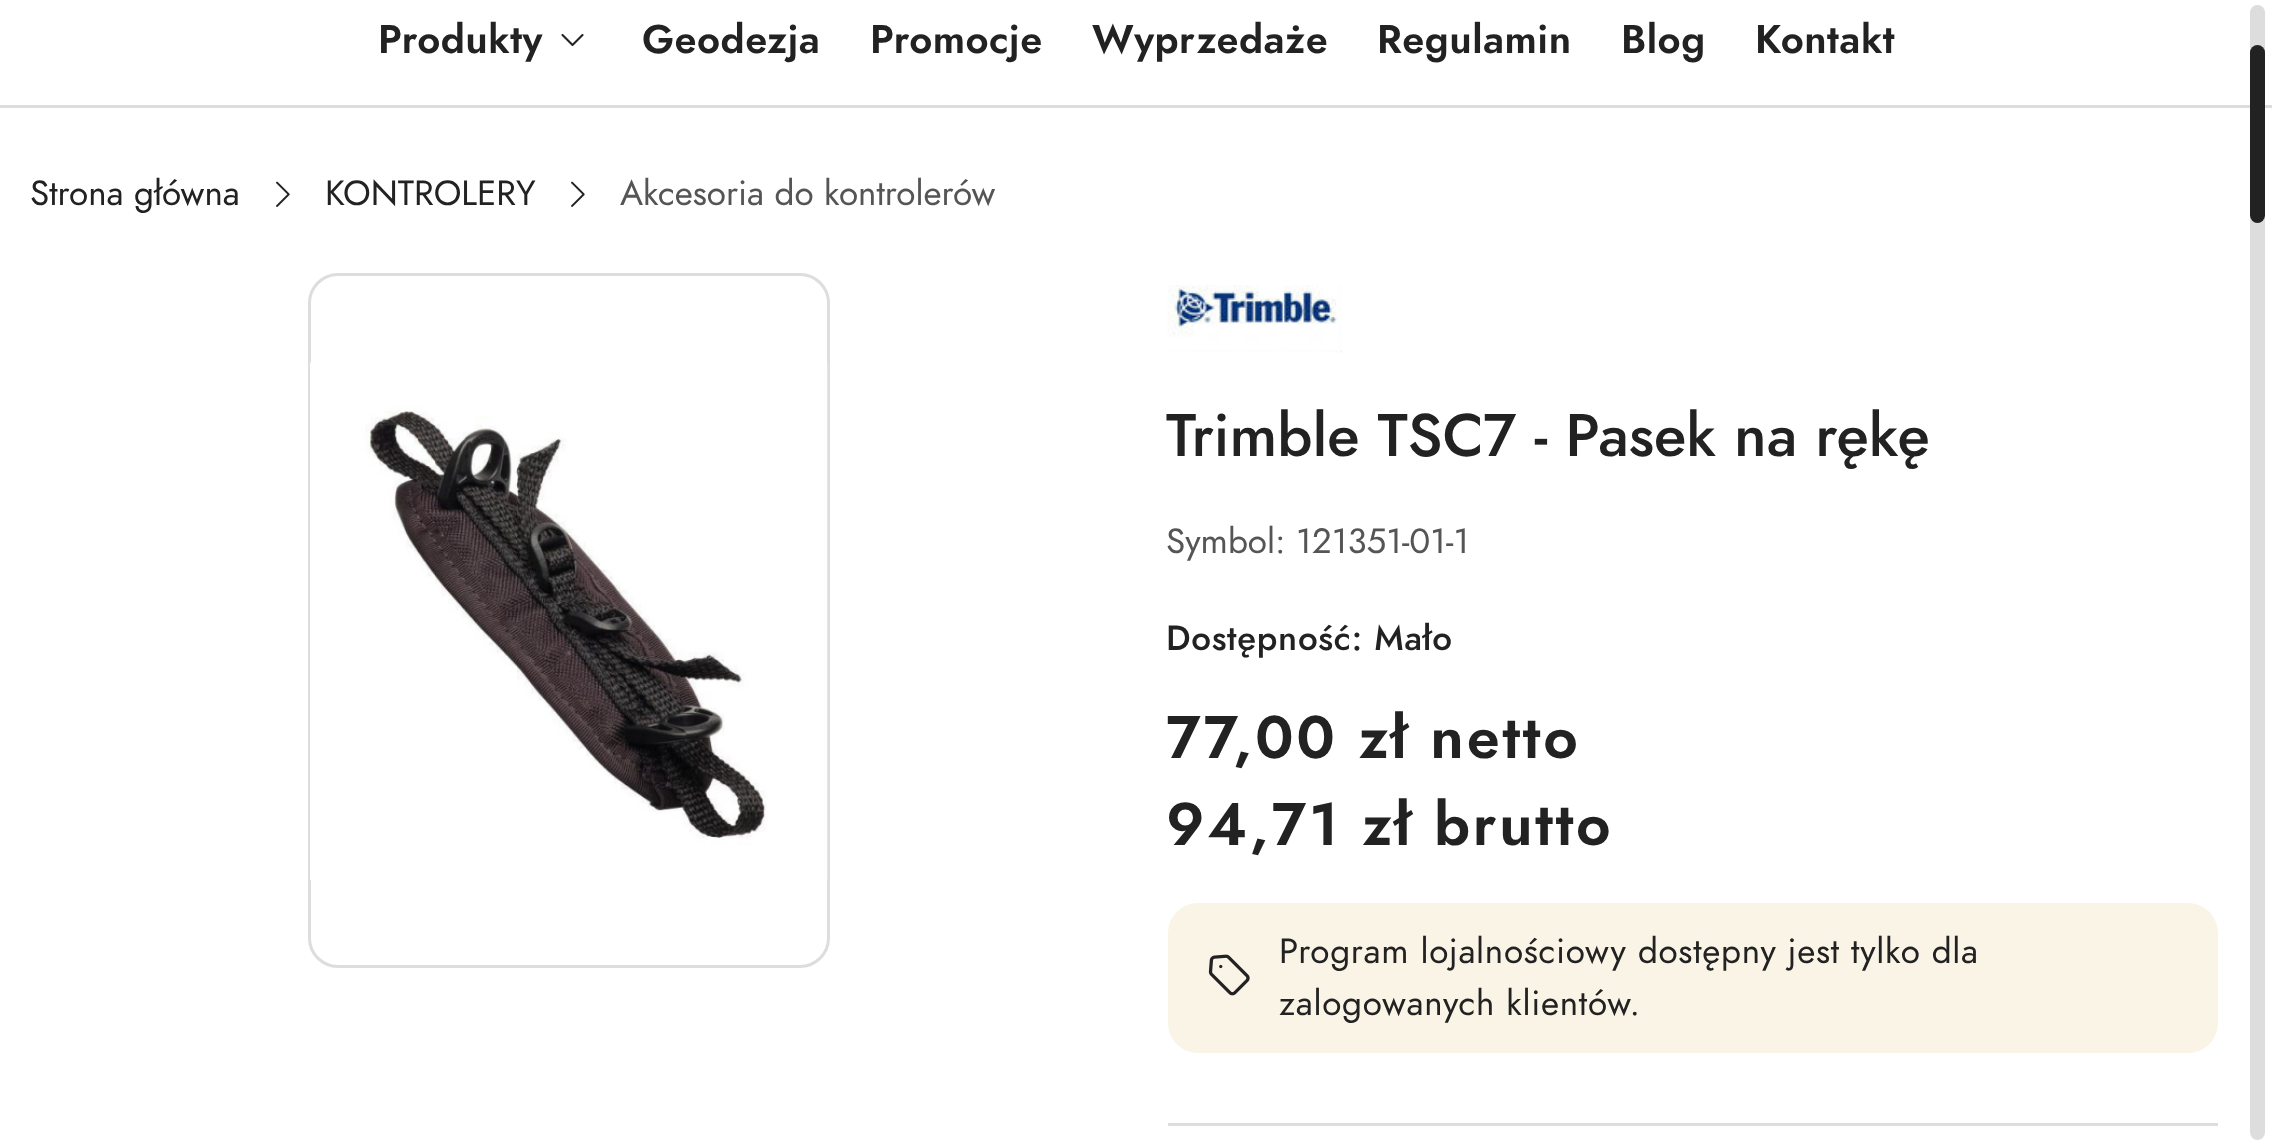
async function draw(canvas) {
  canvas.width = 2272;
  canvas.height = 1145;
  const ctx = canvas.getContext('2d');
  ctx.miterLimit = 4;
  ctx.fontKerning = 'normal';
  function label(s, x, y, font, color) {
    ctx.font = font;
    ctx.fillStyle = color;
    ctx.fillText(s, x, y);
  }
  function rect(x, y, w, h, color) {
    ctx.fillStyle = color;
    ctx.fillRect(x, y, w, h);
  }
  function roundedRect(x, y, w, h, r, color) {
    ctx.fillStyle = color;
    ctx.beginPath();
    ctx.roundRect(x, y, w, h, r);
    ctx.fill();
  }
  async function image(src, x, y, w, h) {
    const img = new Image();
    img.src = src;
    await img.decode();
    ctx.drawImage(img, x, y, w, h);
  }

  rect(0, 0, 2272, 1145, '#fff');
  rect(0, 105, 2272, 3, '#ddd');
  ctx.letterSpacing = '0.5px';
  label('Produkty', 378, 53, '600 40px Jost', '#222');
  await image('assets/img1.png', 561, 34, 23, 12);
  label('Geodezja', 642, 53, '600 40px Jost', '#222');
  label('Promocje', 870, 53, '600 40px Jost', '#222');
  label('Wyprzedaże', 1092, 53, '600 40px Jost', '#222');
  label('Regulamin', 1377, 53, '600 40px Jost', '#222');
  label('Blog', 1621, 53, '600 40px Jost', '#222');
  label('Kontakt', 1755, 53, '600 40px Jost', '#222');
  ctx.letterSpacing = '0px';
  label('Strona główna', 30, 205, '35px Jost', '#222');
  await image('assets/img2.png', 276, 181, 14, 26);
  label('KONTROLERY', 325, 205, '35px Jost', '#222');
  await image('assets/img2.png', 571, 181, 14, 26);
  label('Akcesoria do kontrolerów', 620, 205, '35px Jost', '#555');
  ctx.beginPath();
  ctx.roundRect(309.5, 274.5, 519, 692, 28.5);
  ctx.strokeStyle = '#ddd';
  ctx.lineWidth = 3;
  ctx.stroke();
  await image('assets/img3.png', 310, 362, 518, 518);
  await image('assets/img4.png', 1167, 285, 176, 68);
  label('Trimble TSC7 - Pasek na rękę', 1166, 456, '500 60px Jost', '#222');
  label('Symbol: 121351-01-1', 1166, 553, '35px Jost', '#555');
  ctx.letterSpacing = '0.7px';
  label('Dostępność: Mało', 1166, 650, '500 35px Jost', '#222');
  ctx.letterSpacing = '2.75px';
  label('77,00 zł netto', 1166, 758, '600 60px Jost', '#222');
  label('94,71 zł brutto', 1166, 845, '600 60px Jost', '#222');
  roundedRect(1168, 903, 1050, 150, 30, '#faf4e6');
  await image('assets/img5.png', 1208, 954, 42, 42);
  ctx.letterSpacing = '0.7px';
  label('Program lojalnościowy dostępny jest tylko dla', 1279, 963, '35px Jost', '#222');
  label('zalogowanych klientów.', 1279, 1015, '35px Jost', '#222');
  rect(1168, 1123, 1050, 3, '#ddd');
  roundedRect(2250, 5, 15, 1135, 7.5, '#ddd');
  roundedRect(2250, 45, 15, 178, 7.5, '#222');
}

draw(document.querySelector('canvas'));
